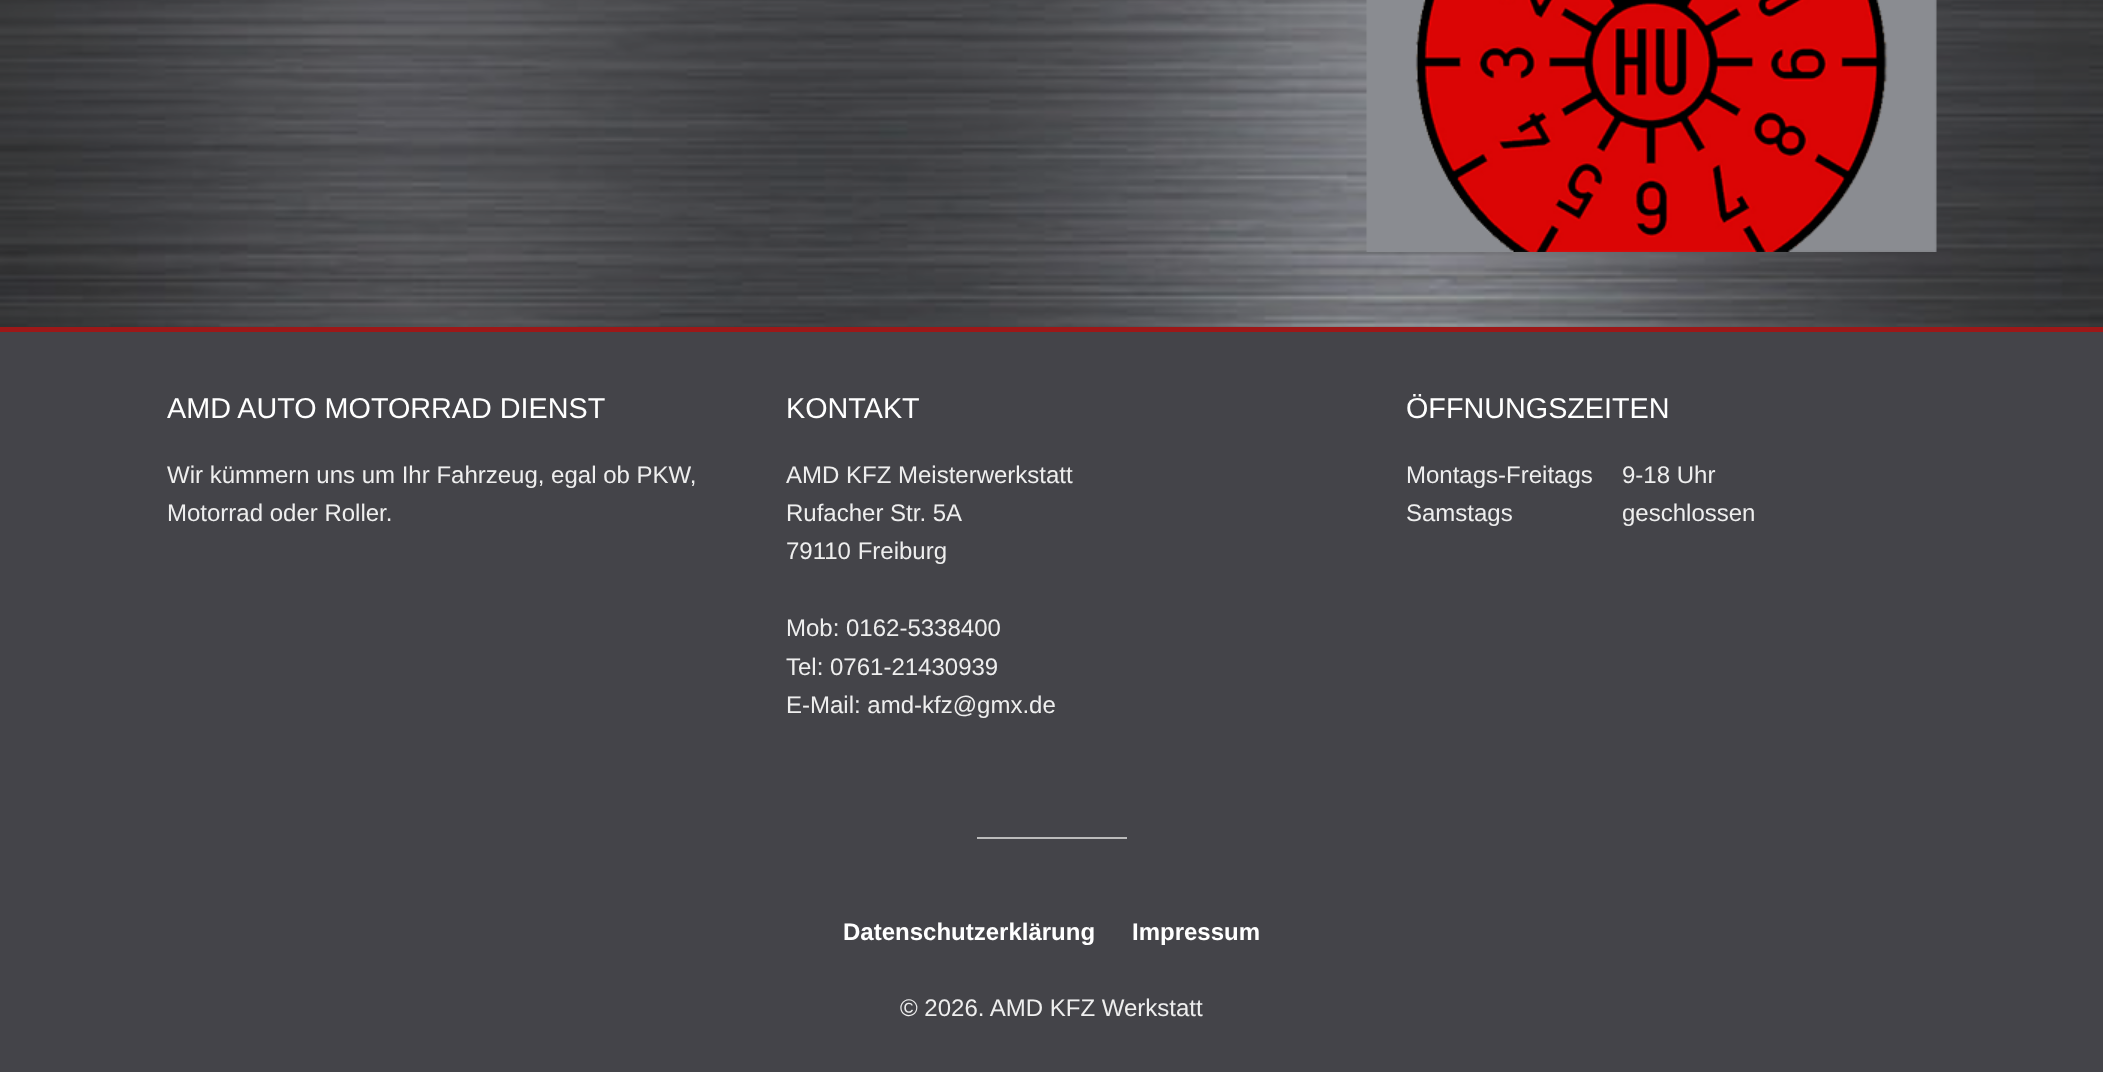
async function draw(canvas) {
  canvas.width = 2103;
  canvas.height = 1072;
  const ctx = canvas.getContext('2d');
  ctx.miterLimit = 4;
  ctx.fontKerning = 'normal';
  function label(s, x, y, font, color) {
    ctx.font = font;
    ctx.fillStyle = color;
    ctx.fillText(s, x, y);
  }
  function rect(x, y, w, h, color) {
    ctx.fillStyle = color;
    ctx.fillRect(x, y, w, h);
  }
  async function image(src, x, y, w, h) {
    const img = new Image();
    img.src = src;
    await img.decode();
    ctx.drawImage(img, x, y, w, h);
  }

  rect(0, 0, 2103, 1072, '#fff');
  await image('assets/img1.png', 0, 0, 2103, 327);
  rect(0, 0, 2103, 327, '#00000066');
  rect(0, 327, 2103, 5, '#9d1818');
  await image('assets/img2.png', 1366, 0, 571, 252);
  rect(0, 332, 2103, 740, '#444449');
  label('AMD AUTO MOTORRAD DIENST', 167, 418, '28.75px Liberation Sans', '#fff');
  label('Wir kümmern uns um Ihr Fahrzeug, egal ob PKW,', 167, 483, '24px Liberation Sans', '#eee');
  label('Motorrad oder Roller.', 167, 521, '24px Liberation Sans', '#eee');
  label('KONTAKT', 786, 418, '28.75px Liberation Sans', '#fff');
  label('AMD KFZ Meisterwerkstatt', 786, 483, '24px Liberation Sans', '#eee');
  label('Rufacher Str. 5A', 786, 521, '24px Liberation Sans', '#eee');
  label('79110 Freiburg', 786, 559, '24px Liberation Sans', '#eee');
  label('Mob: 0162-5338400', 786, 636, '24px Liberation Sans', '#eee');
  label('Tel: 0761-21430939', 786, 675, '24px Liberation Sans', '#eee');
  label('E-Mail: amd-kfz@gmx.de', 786, 713, '24px Liberation Sans', '#eee');
  label('ÖFFNUNGSZEITEN', 1406, 418, '28.75px Liberation Sans', '#fff');
  label('Montags-Freitags', 1406, 483, '24px Liberation Sans', '#eee');
  label('9-18 Uhr', 1622, 483, '24px Liberation Sans', '#eee');
  label('Samstags', 1406, 521, '24px Liberation Sans', '#eee');
  label('geschlossen', 1622, 521, '24px Liberation Sans', '#eee');
  rect(977, 837, 150, 2, '#bbb');
  label('Datenschutzerklärung', 843, 940, 'bold 24px Liberation Sans', '#fff');
  label('Impressum', 1132, 940, 'bold 24px Liberation Sans', '#fff');
  label('© 2026. AMD KFZ Werkstatt', 900, 1016, '24px Liberation Sans', '#eee');
}

draw(document.querySelector('canvas'));
